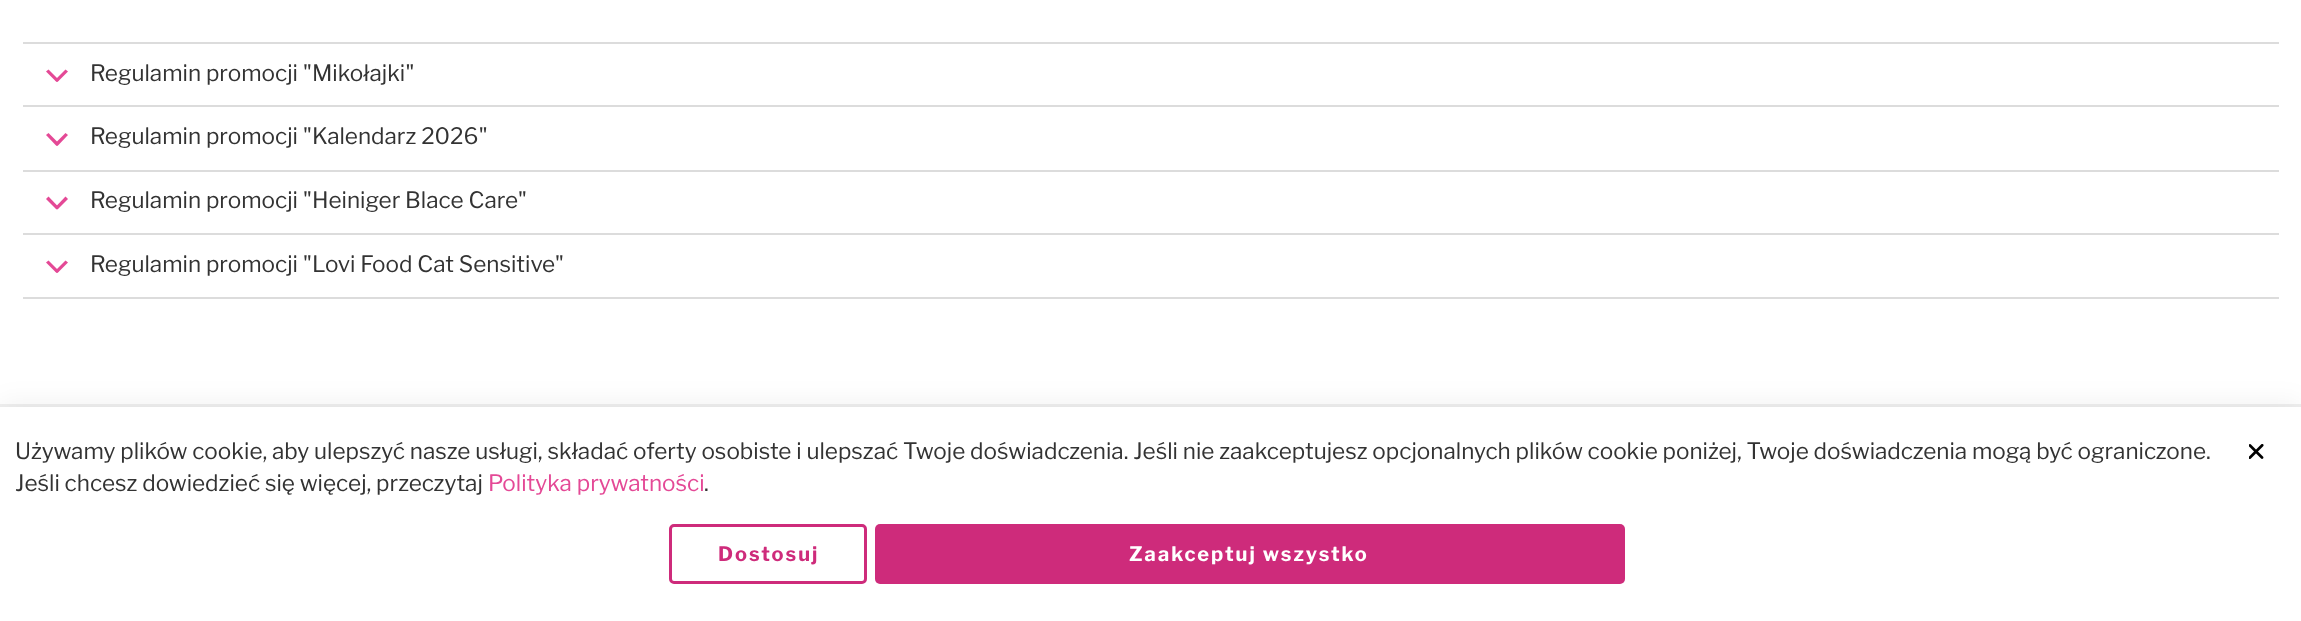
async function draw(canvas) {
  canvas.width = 2301;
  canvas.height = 621;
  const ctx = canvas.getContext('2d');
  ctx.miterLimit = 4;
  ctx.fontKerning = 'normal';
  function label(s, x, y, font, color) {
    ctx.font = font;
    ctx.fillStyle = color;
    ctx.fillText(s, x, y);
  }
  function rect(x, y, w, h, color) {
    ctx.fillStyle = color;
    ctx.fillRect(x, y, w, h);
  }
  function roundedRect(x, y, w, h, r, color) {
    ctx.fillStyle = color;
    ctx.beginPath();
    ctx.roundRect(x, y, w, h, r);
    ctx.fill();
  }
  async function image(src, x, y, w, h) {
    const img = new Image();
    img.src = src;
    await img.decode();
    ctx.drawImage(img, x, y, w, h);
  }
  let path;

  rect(0, 0, 2301, 621, '#fff');
  rect(23, 42, 2256, 2, '#dcdcdc');
  rect(23, 105, 2256, 2, '#dcdcdc');
  ctx.fillStyle = '#e44996';
  path = new Path2D('M48.5 69.5L59 80L56.5 82L46 71.5Z');
  ctx.fill(path);
  path = new Path2D('M55 80L65.5 69.5L68 71.5L57.5 82Z');
  ctx.fill(path);
  label('Regulamin promocji "Mikołajki"', 90, 81, '100 22.5px Libre Franklin', '#333');
  rect(23, 170, 2256, 2, '#dcdcdc');
  ctx.fillStyle = '#e44996';
  path = new Path2D('M48.5 133L59 143.5L56.5 146L46 135Z');
  ctx.fill(path);
  path = new Path2D('M55 143.5L65.5 133L68 135L57.5 146Z');
  ctx.fill(path);
  label('Regulamin promocji "Kalendarz 2026"', 90, 144, '100 22.5px Libre Franklin', '#333');
  rect(23, 233, 2256, 2, '#dcdcdc');
  ctx.fillStyle = '#e44996';
  path = new Path2D('M48.5 196.5L59 207.5L56.5 209.5L46 199Z');
  ctx.fill(path);
  path = new Path2D('M55 207.5L65.5 196.5L68 199L57.5 209.5Z');
  ctx.fill(path);
  label('Regulamin promocji "Heiniger Blace Care"', 90, 208, '100 22.5px Libre Franklin', '#333');
  rect(23, 297, 2256, 2, '#dcdcdc');
  ctx.fillStyle = '#e44996';
  path = new Path2D('M48.5 260.5L59 271L56.5 273L46 262.5Z');
  ctx.fill(path);
  path = new Path2D('M55 271L65.5 260.5L68 262.5L57.5 273Z');
  ctx.fill(path);
  label('Regulamin promocji "Lovi Food Cat Sensitive"', 90, 272, '100 22.5px Libre Franklin', '#333');
  rect(0, 404, 2301, 3, '#f0f0f0');
  ctx.fillStyle = '#0000000f';
  ctx.filter = 'blur(13.5px)';
  ctx.beginPath();
  ctx.rect(0, 404, 2301, 214);
  ctx.fill();
  ctx.filter = 'none';
  rect(0, 407, 2301, 214, '#fff');
  label('Używamy plików cookie, aby ulepszyć nasze usługi, składać oferty osobiste i ulepszać Twoje doświadczenia. Jeśli nie zaakceptujesz opcjonalnych plików cookie poniżej, Twoje doświadczenia mogą być ograniczone.', 15, 459, '100 22.5px Libre Franklin', '#333');
  label('Jeśli chcesz dowiedzieć się więcej, przeczytaj', 15, 491, '100 22.5px Libre Franklin', '#333');
  label('Polityka prywatności', 488, 491, '100 22.5px Libre Franklin', '#e44996');
  label('.', 704, 491, '100 22.5px Libre Franklin', '#333');
  ctx.beginPath();
  ctx.roundRect(670.5, 525.5, 195, 57, 3.5);
  ctx.strokeStyle = '#ce2b7b';
  ctx.lineWidth = 3;
  ctx.stroke();
  ctx.letterSpacing = '2px';
  label('Dostosuj', 718, 561, '100 20px "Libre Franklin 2"', '#ce2b7b');
  roundedRect(875, 524, 750, 60, 5, '#ce2b7b');
  label('Zaakceptuj wszystko', 1129, 561, '100 20px "Libre Franklin 2"', '#fff');
  await image('assets/img1.png', 2249, 444, 15, 15);
}

draw(document.querySelector('canvas'));
